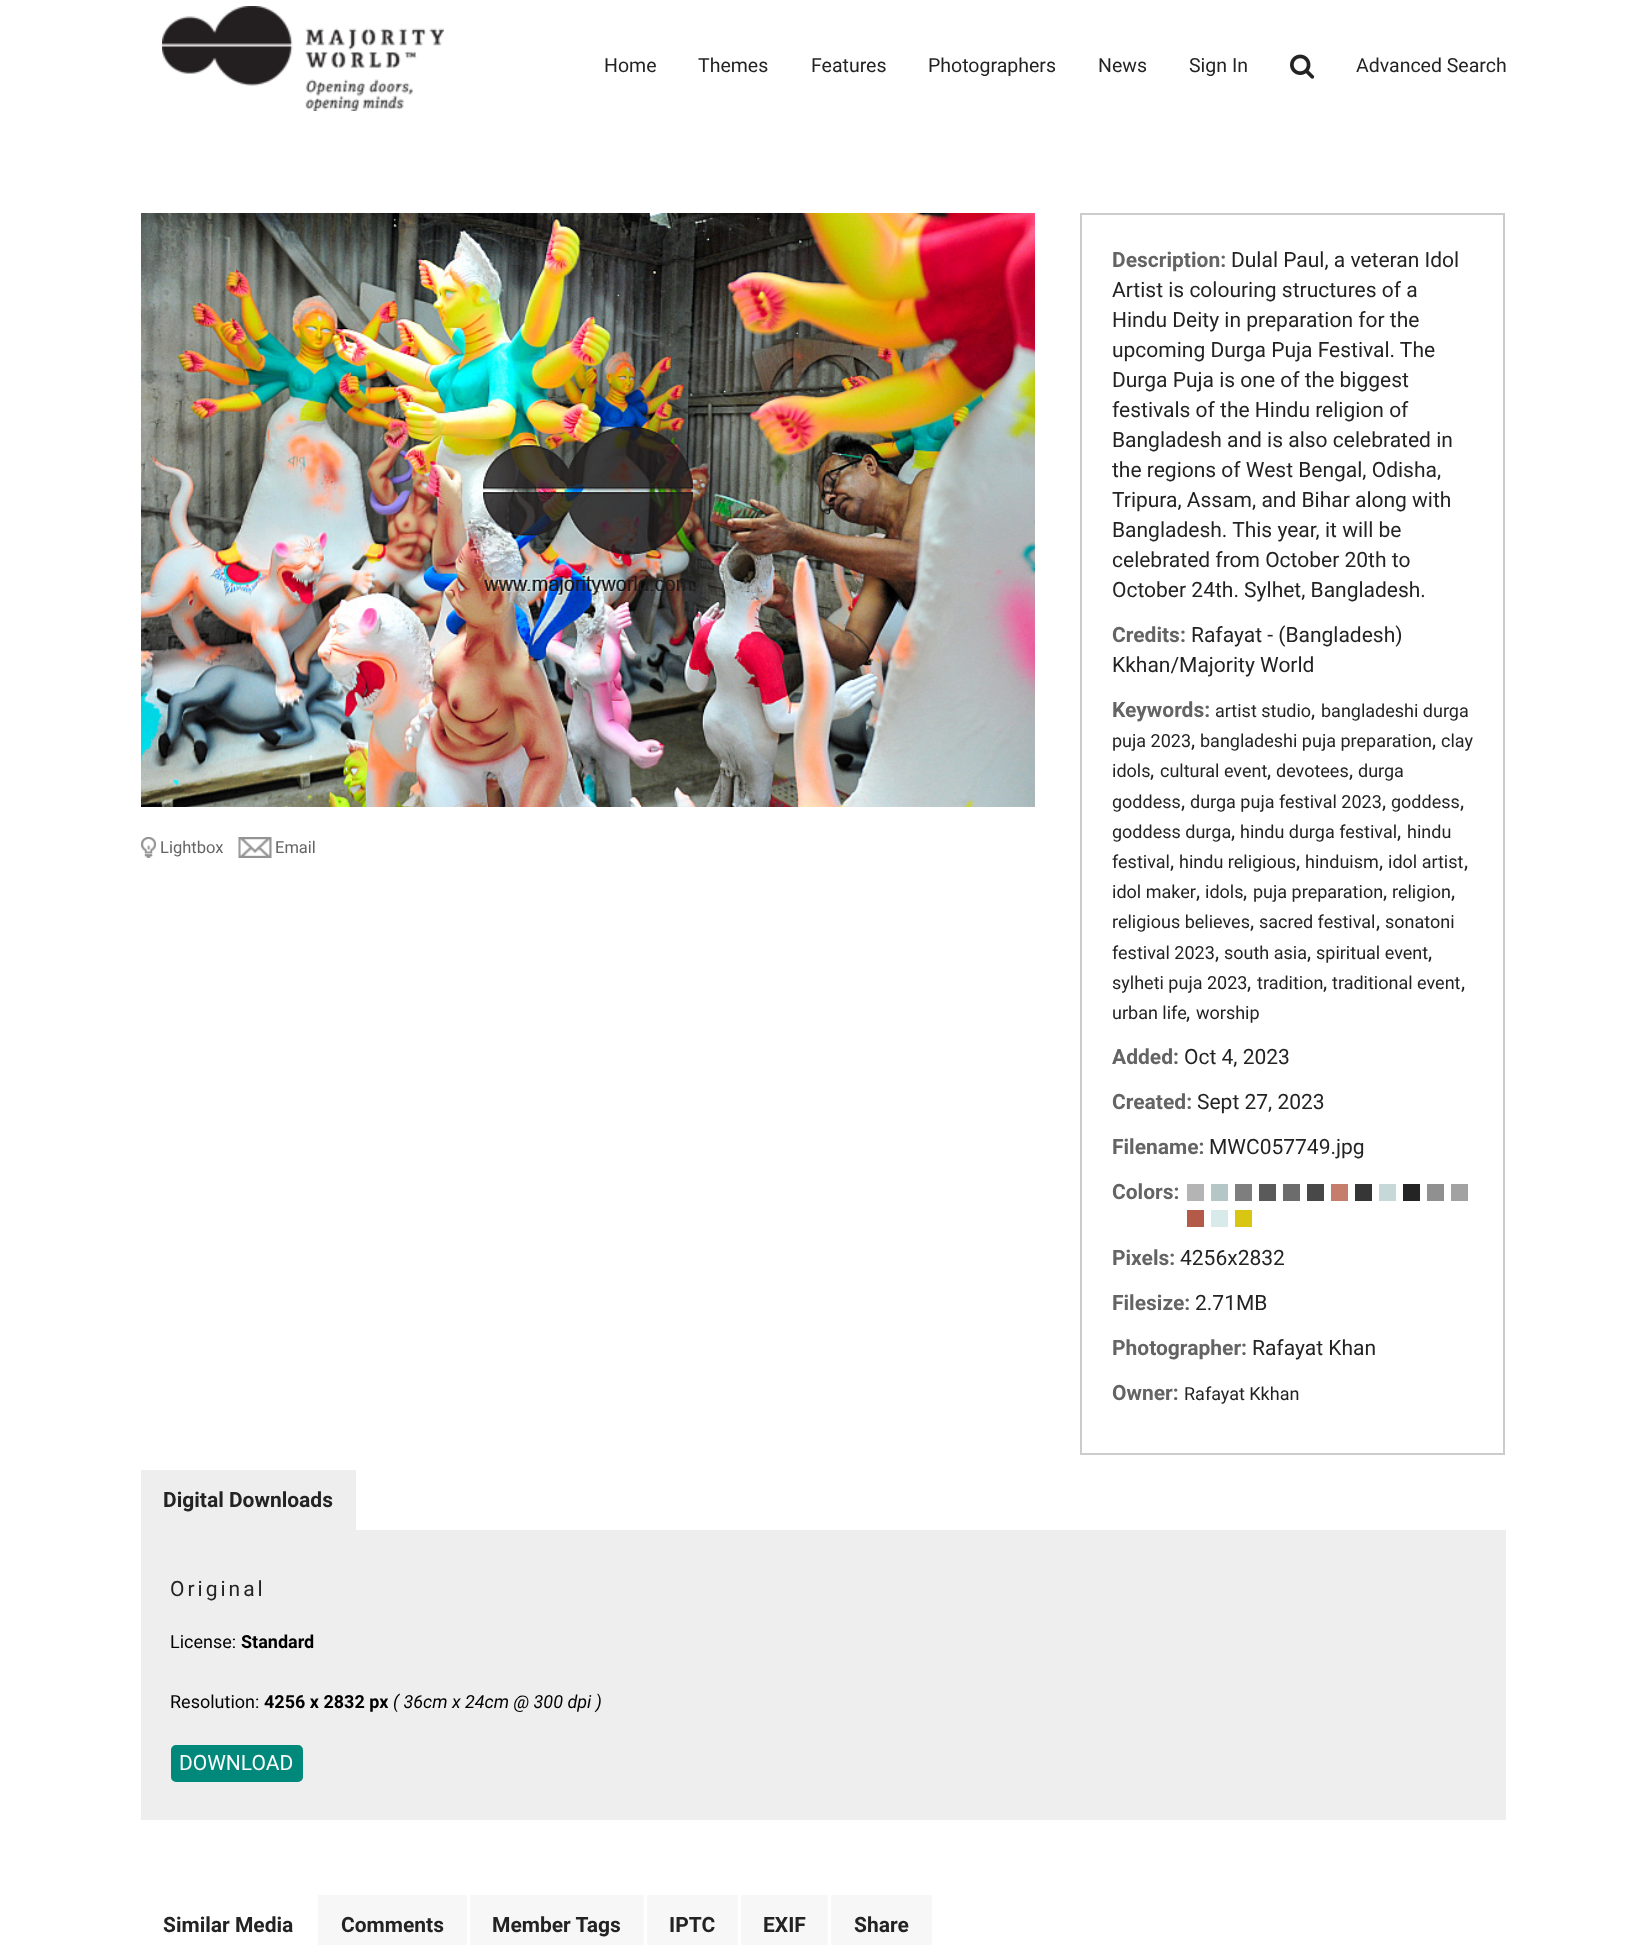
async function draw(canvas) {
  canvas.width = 1645;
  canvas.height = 1945;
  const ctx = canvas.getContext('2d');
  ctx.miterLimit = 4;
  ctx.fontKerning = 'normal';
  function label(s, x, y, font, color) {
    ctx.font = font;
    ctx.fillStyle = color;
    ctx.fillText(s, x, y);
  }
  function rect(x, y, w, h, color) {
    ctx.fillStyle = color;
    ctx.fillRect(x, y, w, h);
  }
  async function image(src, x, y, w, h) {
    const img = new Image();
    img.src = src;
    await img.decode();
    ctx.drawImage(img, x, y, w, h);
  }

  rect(0, 0, 1645, 1945, '#fff');
  await image('assets/img1.png', 162, 6, 282, 105);
  label('Home', 604, 72, '19.5px Roboto', '#232323');
  label('Themes', 698, 72, '19.5px Roboto', '#232323');
  label('Features', 811, 72, '19.5px Roboto', '#232323');
  label('Photographers', 928, 72, '19.5px Roboto', '#232323');
  label('News', 1098, 72, '19.5px Roboto', '#232323');
  label('Sign In', 1189, 72, '19.5px Roboto', '#232323');
  await image('assets/img2.png', 1290, 54, 25, 25);
  label('Advanced Search', 1356, 72, '19.5px Roboto', '#232323');
  await image('assets/img3.png', 141, 213, 894, 594);
  await image('assets/img4.png', 141, 837, 15, 21);
  label('Lightbox', 160, 853, '16.5px Roboto', '#646464');
  await image('assets/img5.png', 238, 837, 34, 21);
  label('Email', 275, 853, '16.5px Roboto', '#646464');
  ctx.strokeStyle = '#ccc';
  ctx.lineWidth = 2;
  ctx.strokeRect(1081, 214, 423, 1240);
  label('Description:', 1112, 267, 'bold 21px Roboto', '#646464');
  label('Dulal Paul, a veteran Idol', 1231, 267, '21px Roboto', '#232323');
  label('Artist is colouring structures of a', 1112, 297, '21px Roboto', '#232323');
  label('Hindu Deity in preparation for the', 1112, 327, '21px Roboto', '#232323');
  label('upcoming Durga Puja Festival. The', 1112, 357, '21px Roboto', '#232323');
  label('Durga Puja is one of the biggest', 1112, 387, '21px Roboto', '#232323');
  label('festivals of the Hindu religion of', 1112, 417, '21px Roboto', '#232323');
  label('Bangladesh and is also celebrated in', 1112, 447, '21px Roboto', '#232323');
  label('the regions of West Bengal, Odisha,', 1112, 477, '21px Roboto', '#232323');
  label('Tripura, Assam, and Bihar along with', 1112, 507, '21px Roboto', '#232323');
  label('Bangladesh. This year, it will be', 1112, 537, '21px Roboto', '#232323');
  label('celebrated from October 20th to', 1112, 567, '21px Roboto', '#232323');
  label('October 24th. Sylhet, Bangladesh.', 1112, 597, '21px Roboto', '#232323');
  label('Credits:', 1112, 642, 'bold 21px Roboto', '#646464');
  label('Rafayat - (Bangladesh)', 1191, 642, '21px Roboto', '#232323');
  label('Kkhan/Majority World', 1112, 672, '21px Roboto', '#232323');
  label('Keywords:', 1112, 717, 'bold 21px Roboto', '#646464');
  label('artist studio', 1215, 717, '18px Roboto', '#232323');
  label(',', 1311, 717, '21px Roboto', '#232323');
  label('bangladeshi durga', 1321, 717, '18px Roboto', '#232323');
  label('puja 2023', 1112, 747, '18px Roboto', '#232323');
  label(',', 1191, 747, '21px Roboto', '#232323');
  label('bangladeshi puja preparation', 1200, 747, '18px Roboto', '#232323');
  label(',', 1432, 747, '21px Roboto', '#232323');
  label('clay', 1441, 747, '18px Roboto', '#232323');
  label('idols', 1112, 777, '18px Roboto', '#232323');
  label(',', 1150, 777, '21px Roboto', '#232323');
  label('cultural event', 1160, 777, '18px Roboto', '#232323');
  label(',', 1267, 777, '21px Roboto', '#232323');
  label('devotees', 1276, 777, '18px Roboto', '#232323');
  label(',', 1349, 777, '21px Roboto', '#232323');
  label('durga', 1358, 777, '18px Roboto', '#232323');
  label('goddess', 1112, 808, '18px Roboto', '#232323');
  label(',', 1181, 808, '21px Roboto', '#232323');
  label('durga puja festival 2023', 1190, 808, '18px Roboto', '#232323');
  label(',', 1382, 808, '21px Roboto', '#232323');
  label('goddess', 1391, 808, '18px Roboto', '#232323');
  label(',', 1460, 808, '21px Roboto', '#232323');
  label('goddess durga', 1112, 838, '18px Roboto', '#232323');
  label(',', 1231, 838, '21px Roboto', '#232323');
  label('hindu durga festival', 1240, 838, '18px Roboto', '#232323');
  label(',', 1397, 838, '21px Roboto', '#232323');
  label('hindu', 1407, 838, '18px Roboto', '#232323');
  label('festival', 1112, 868, '18px Roboto', '#232323');
  label(',', 1170, 868, '21px Roboto', '#232323');
  label('hindu religious', 1179, 868, '18px Roboto', '#232323');
  label(',', 1296, 868, '21px Roboto', '#232323');
  label('hinduism', 1305, 868, '18px Roboto', '#232323');
  label(',', 1379, 868, '21px Roboto', '#232323');
  label('idol artist', 1388, 868, '18px Roboto', '#232323');
  label(',', 1464, 868, '21px Roboto', '#232323');
  label('idol maker', 1112, 898, '18px Roboto', '#232323');
  label(',', 1196, 898, '21px Roboto', '#232323');
  label('idols', 1205, 898, '18px Roboto', '#232323');
  label(',', 1243, 898, '21px Roboto', '#232323');
  label('puja preparation', 1253, 898, '18px Roboto', '#232323');
  label(',', 1383, 898, '21px Roboto', '#232323');
  label('religion', 1392, 898, '18px Roboto', '#232323');
  label(',', 1451, 898, '21px Roboto', '#232323');
  label('religious believes', 1112, 928, '18px Roboto', '#232323');
  label(',', 1250, 928, '21px Roboto', '#232323');
  label('sacred festival', 1259, 928, '18px Roboto', '#232323');
  label(',', 1376, 928, '21px Roboto', '#232323');
  label('sonatoni', 1385, 928, '18px Roboto', '#232323');
  label('festival 2023', 1112, 959, '18px Roboto', '#232323');
  label(',', 1215, 959, '21px Roboto', '#232323');
  label('south asia', 1224, 959, '18px Roboto', '#232323');
  label(',', 1307, 959, '21px Roboto', '#232323');
  label('spiritual event', 1316, 959, '18px Roboto', '#232323');
  label(',', 1428, 959, '21px Roboto', '#232323');
  label('sylheti puja 2023', 1112, 989, '18px Roboto', '#232323');
  label(',', 1247, 989, '21px Roboto', '#232323');
  label('tradition', 1257, 989, '18px Roboto', '#232323');
  label(',', 1323, 989, '21px Roboto', '#232323');
  label('traditional event', 1332, 989, '18px Roboto', '#232323');
  label(',', 1461, 989, '21px Roboto', '#232323');
  label('urban life', 1112, 1019, '18px Roboto', '#232323');
  label(',', 1186, 1019, '21px Roboto', '#232323');
  label('worship', 1196, 1019, '18px Roboto', '#232323');
  label('Added:', 1112, 1064, 'bold 21px Roboto', '#646464');
  label('Oct 4, 2023', 1184, 1064, '21px Roboto', '#232323');
  label('Created:', 1112, 1109, 'bold 21px Roboto', '#646464');
  label('Sept 27, 2023', 1197, 1109, '21px Roboto', '#232323');
  label('Filename:', 1112, 1154, 'bold 21px Roboto', '#646464');
  label('MWC057749.jpg', 1209, 1154, '21px Roboto', '#232323');
  label('Colors:', 1112, 1199, 'bold 21px Roboto', '#646464');
  rect(1187, 1184, 17, 17, '#b4b4b4');
  rect(1211, 1184, 17, 17, '#b4c6c6');
  rect(1235, 1184, 17, 17, '#7e7e7e');
  rect(1259, 1184, 17, 17, '#5a5a5a');
  rect(1283, 1184, 17, 17, '#6c6c6c');
  rect(1307, 1184, 17, 17, '#484848');
  rect(1331, 1184, 17, 17, '#c67e6c');
  rect(1355, 1184, 17, 17, '#363636');
  rect(1379, 1184, 17, 17, '#c6d8d8');
  rect(1403, 1184, 17, 17, '#242424');
  rect(1427, 1184, 17, 17, '#909090');
  rect(1451, 1184, 17, 17, '#a2a2a2');
  rect(1187, 1210, 17, 17, '#b45a48');
  rect(1211, 1210, 17, 17, '#d8eaea');
  rect(1235, 1210, 17, 17, '#d8c612');
  label('Pixels:', 1112, 1265, 'bold 21px Roboto', '#646464');
  label('4256x2832', 1180, 1265, '21px Roboto', '#232323');
  label('Filesize:', 1112, 1310, 'bold 21px Roboto', '#646464');
  label('2.71MB', 1195, 1310, '21px Roboto', '#232323');
  label('Photographer:', 1112, 1355, 'bold 21px Roboto', '#646464');
  label('Rafayat Khan', 1252, 1355, '21px Roboto', '#232323');
  label('Owner:', 1112, 1400, 'bold 21px Roboto', '#646464');
  label('Rafayat Kkhan', 1184, 1400, '18px Roboto', '#232323');
  rect(141, 1470, 215, 60, '#eee');
  label('Digital Downloads', 163, 1507, 'bold 21px Roboto', '#232323');
  rect(141, 1530, 1365, 290, '#eee');
  ctx.letterSpacing = '3px';
  label('Original', 170, 1596, '21px Roboto', '#232323');
  ctx.letterSpacing = '0px';
  label('License:', 170, 1648, '18px Roboto', '#000');
  label('Standard', 241, 1648, 'bold 18px Roboto', '#000');
  label('Resolution:', 170, 1708, '18px Roboto', '#000');
  label('4256 x 2832 px', 264, 1708, 'bold 18px Roboto', '#000');
  label('( 36cm x 24cm @ 300 dpi )', 393, 1708, 'italic 18px Roboto', '#000');
  ctx.fillStyle = '#00897b';
  ctx.beginPath();
  ctx.roundRect(172, 1746, 130, 35, 4);
  ctx.fill();
  ctx.strokeStyle = '#00897b';
  ctx.stroke();
  label('DOWNLOAD', 179, 1770, '21px Roboto', '#fafafa');
  label('Similar Media', 163, 1932, 'bold 21px Roboto', '#232323');
  rect(318, 1895, 149, 50, '#f7f7f7');
  label('Comments', 341, 1932, 'bold 21px Roboto', '#232323');
  rect(470, 1895, 174, 50, '#f7f7f7');
  label('Member Tags', 492, 1932, 'bold 21px Roboto', '#232323');
  rect(647, 1895, 91, 50, '#f7f7f7');
  label('IPTC', 669, 1932, 'bold 21px Roboto', '#232323');
  rect(741, 1895, 87, 50, '#f7f7f7');
  label('EXIF', 763, 1932, 'bold 21px Roboto', '#232323');
  rect(831, 1895, 101, 50, '#f7f7f7');
  label('Share', 854, 1932, 'bold 21px Roboto', '#232323');
}

draw(document.querySelector('canvas'));
